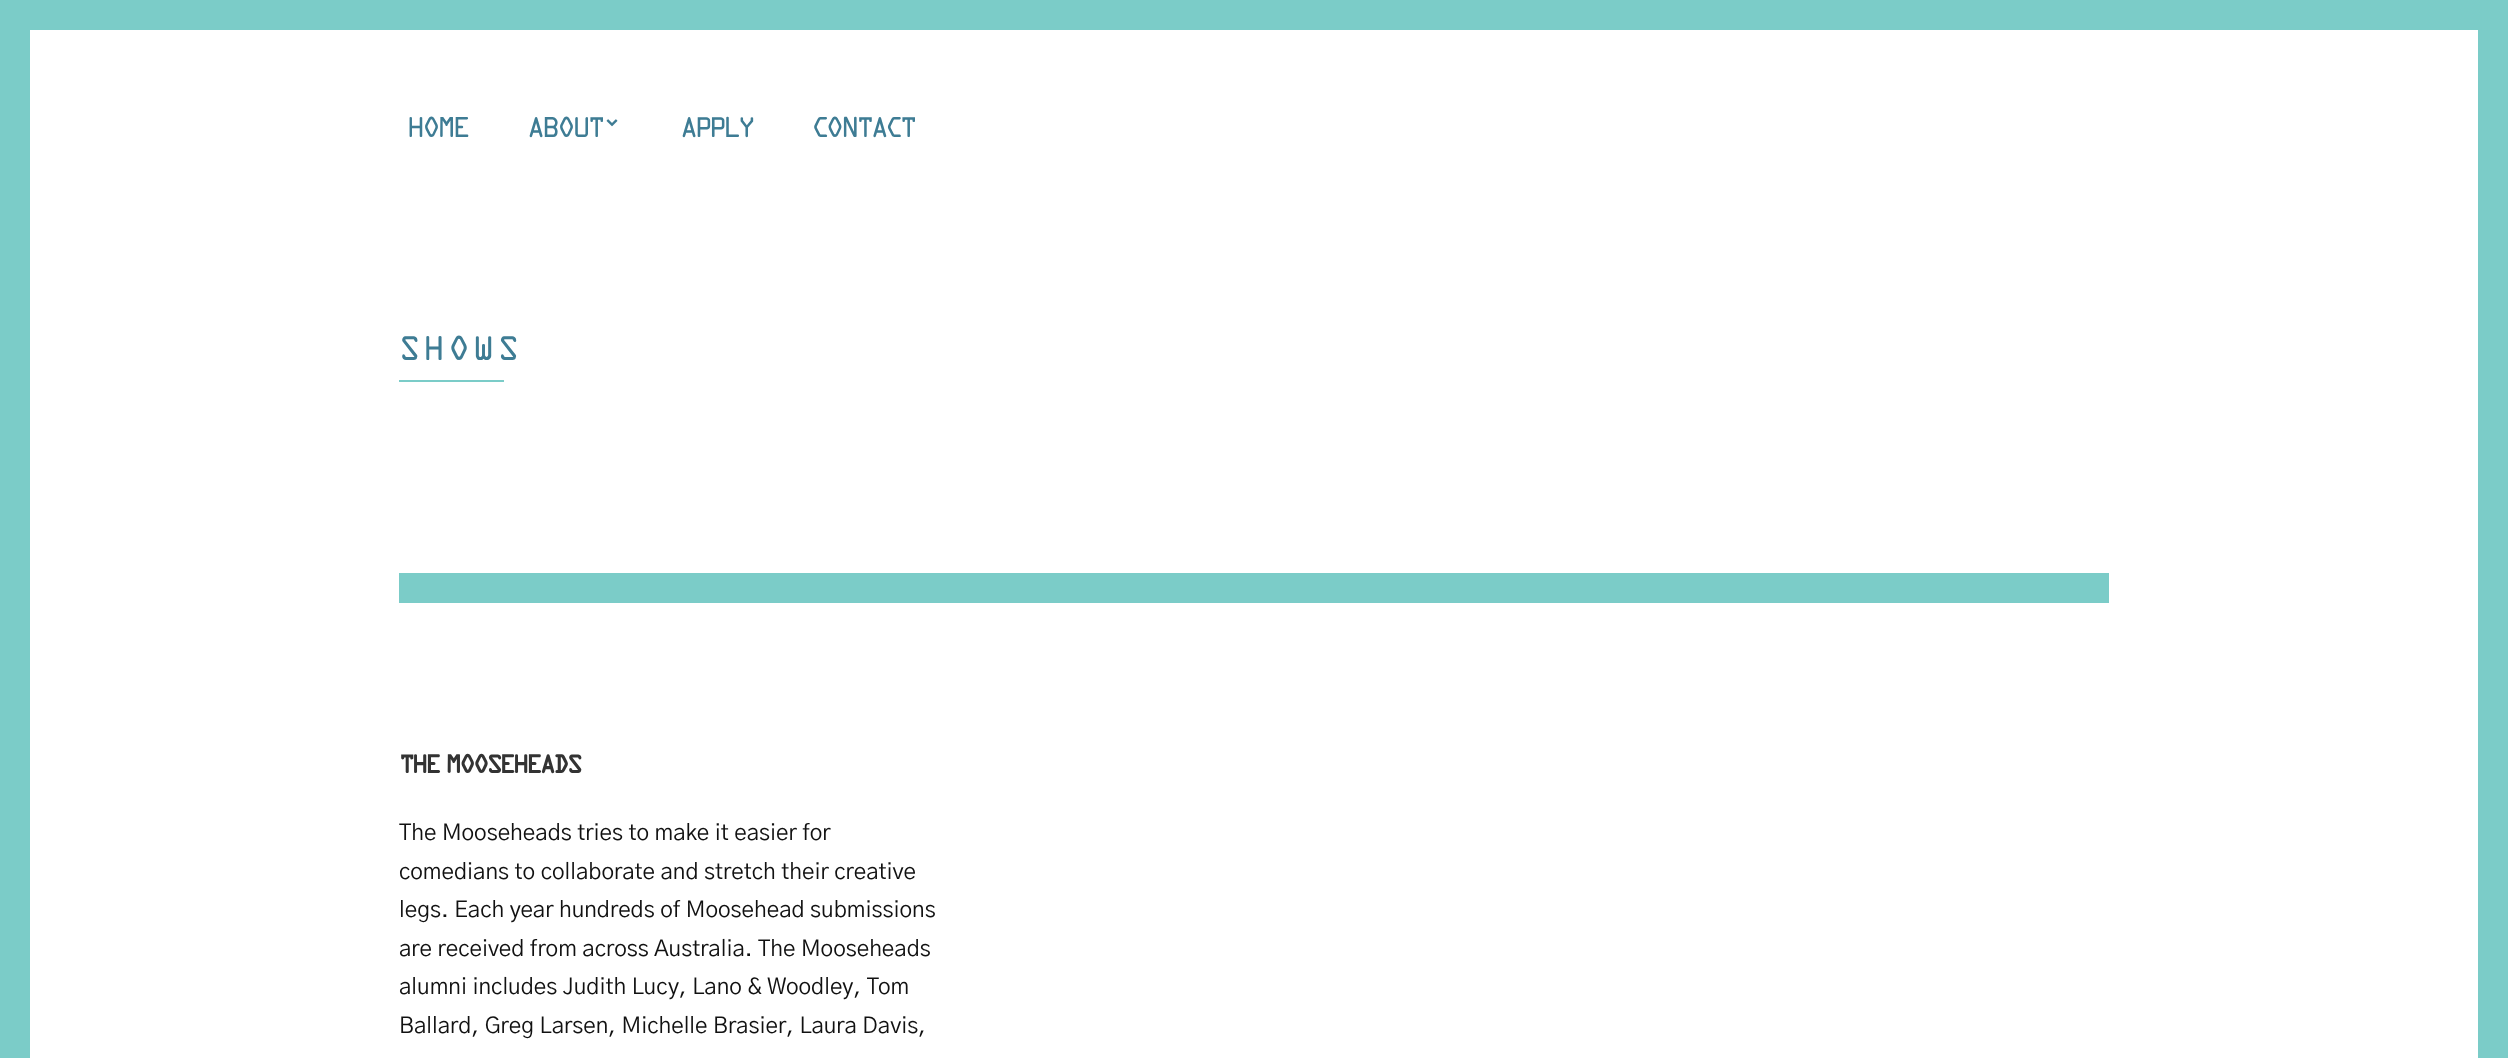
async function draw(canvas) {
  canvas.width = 2508;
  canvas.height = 1058;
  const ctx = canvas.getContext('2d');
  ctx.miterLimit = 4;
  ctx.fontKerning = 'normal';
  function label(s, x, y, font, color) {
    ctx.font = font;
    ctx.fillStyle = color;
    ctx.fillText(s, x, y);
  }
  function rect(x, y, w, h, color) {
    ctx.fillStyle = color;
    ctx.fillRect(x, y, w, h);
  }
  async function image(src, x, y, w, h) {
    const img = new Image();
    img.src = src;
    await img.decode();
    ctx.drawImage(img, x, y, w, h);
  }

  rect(0, 0, 2508, 1058, '#fff');
  ctx.strokeStyle = '#7bccc8';
  ctx.lineWidth = 30;
  ctx.strokeRect(15, 15, 2478, 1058);
  label('HOME', 407, 137, '30px "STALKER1"', '#3e7c94');
  label('ABOUT', 527, 137, '30px "STALKER1"', '#3e7c94');
  await image('assets/img1.png', 606, 119, 12, 8);
  label('APPLY', 680, 137, '30px "STALKER1"', '#3e7c94');
  label('CONTACT', 812, 137, '30px "STALKER1"', '#3e7c94');
  ctx.letterSpacing = '6.5px';
  label('SHOWS', 399, 360, '36px "STALKER1"', '#3e7c94');
  rect(399, 380, 105, 2, '#7bccc8');
  rect(399, 573, 1710, 30, '#7bccc8');
  ctx.letterSpacing = '0px';
  label('THE MOOSEHEADS', 399, 773, 'bold 27px "STALKER1"', '#333');
  label('The Mooseheads tries to make it easier for', 399, 840, '22.5px "Gothic A1"', '#111');
  label('comedians to collaborate and stretch their creative', 399, 879, '22.5px "Gothic A1"', '#111');
  label('legs. Each year hundreds of Moosehead submissions', 399, 917, '22.5px "Gothic A1"', '#111');
  label('are received from across Australia. The Mooseheads', 399, 956, '22.5px "Gothic A1"', '#111');
  label('alumni includes Judith Lucy, Lano & Woodley, Tom', 399, 994, '22.5px "Gothic A1"', '#111');
  label('Ballard, Greg Larsen, Michelle Brasier, Laura Davis,', 399, 1033, '22.5px "Gothic A1"', '#111');
}

draw(document.querySelector('canvas'));
